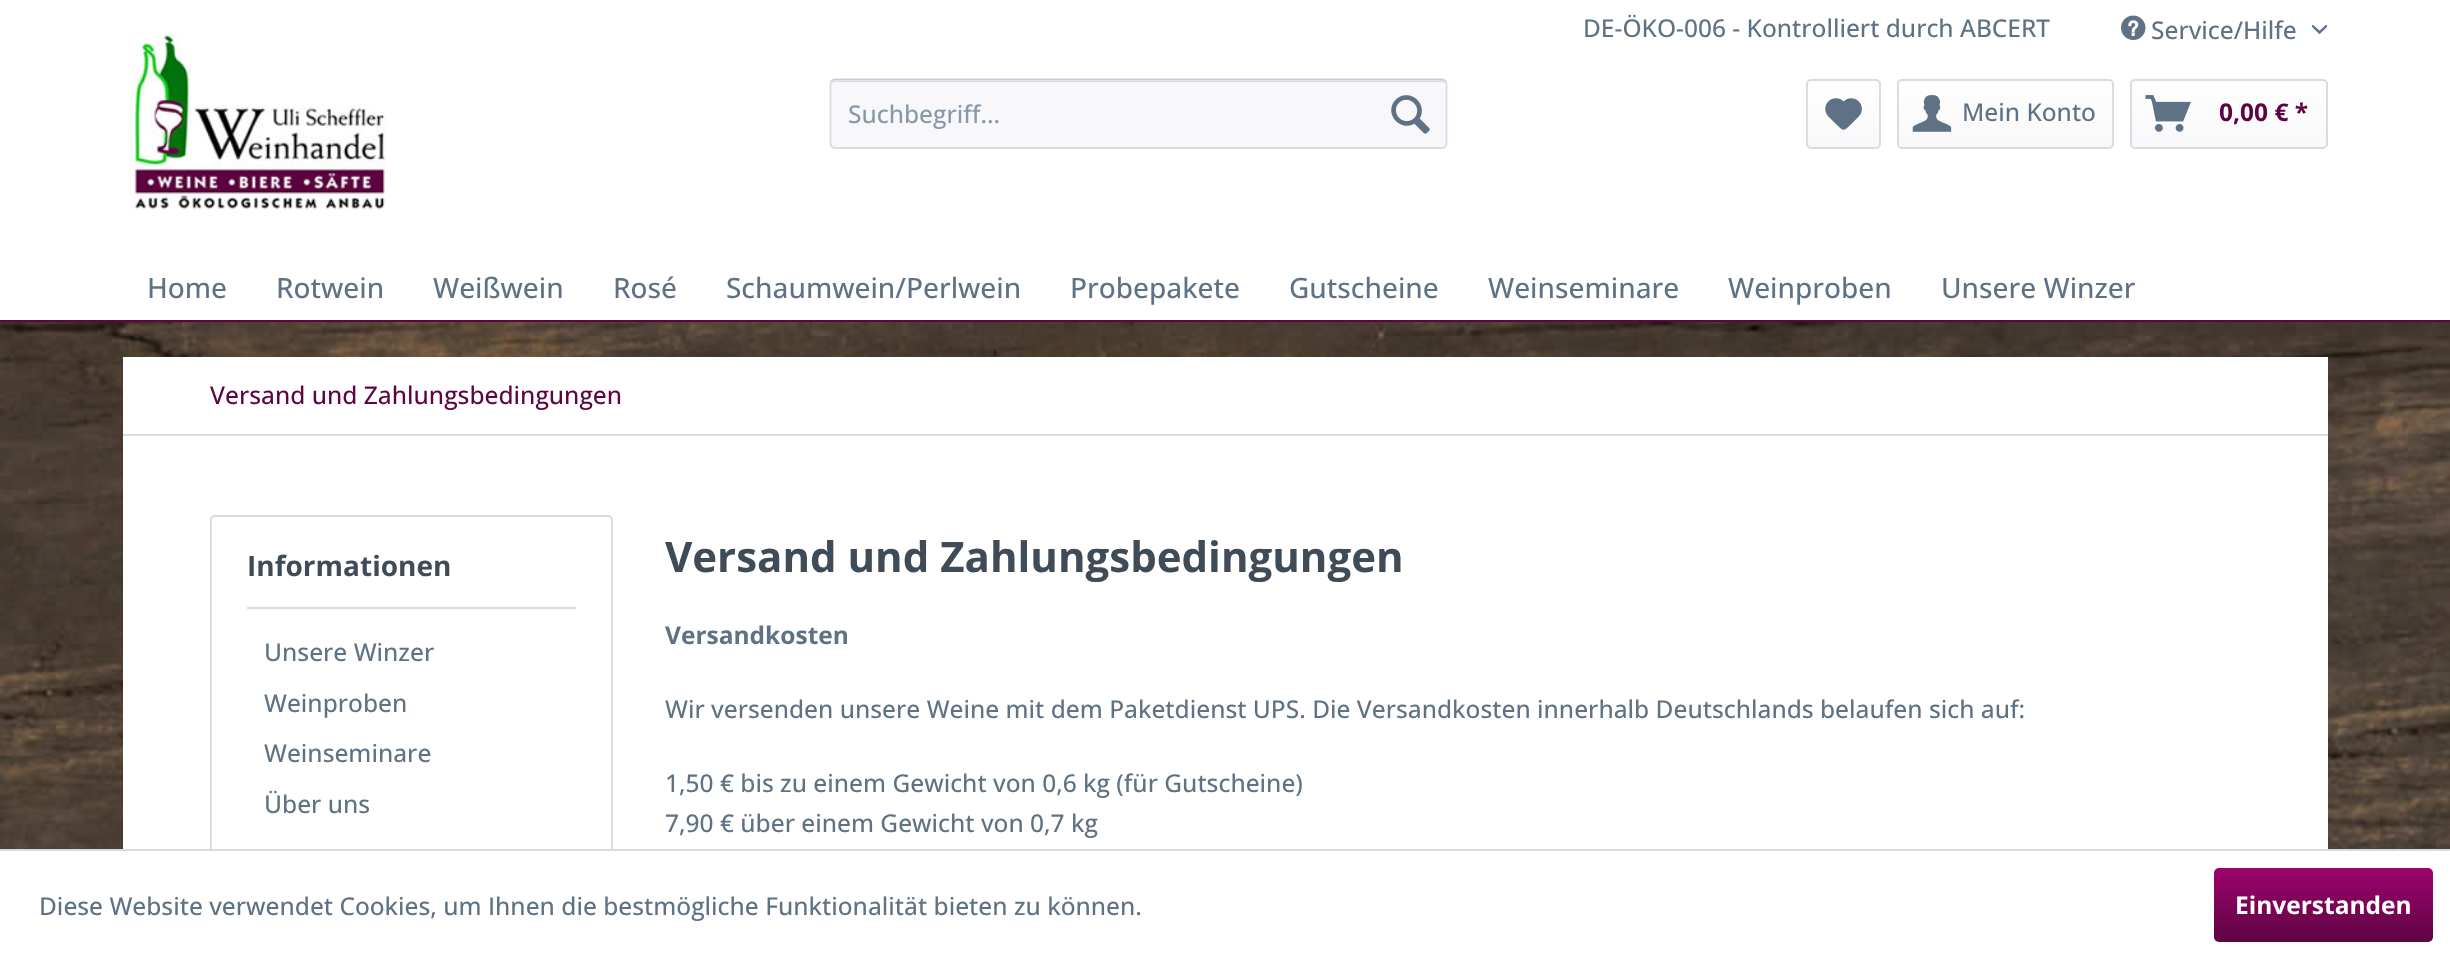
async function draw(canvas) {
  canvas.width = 2450;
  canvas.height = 960;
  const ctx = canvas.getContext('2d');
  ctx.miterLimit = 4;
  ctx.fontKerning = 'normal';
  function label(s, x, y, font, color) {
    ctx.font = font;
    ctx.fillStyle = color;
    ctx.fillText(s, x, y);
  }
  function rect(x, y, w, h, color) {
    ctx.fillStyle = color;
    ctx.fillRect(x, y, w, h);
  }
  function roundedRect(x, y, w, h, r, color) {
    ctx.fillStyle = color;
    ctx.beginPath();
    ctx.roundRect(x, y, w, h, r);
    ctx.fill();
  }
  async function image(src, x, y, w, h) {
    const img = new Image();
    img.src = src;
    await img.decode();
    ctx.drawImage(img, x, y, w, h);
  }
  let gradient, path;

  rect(0, 0, 2450, 960, '#fff');
  await image('assets/img1.png', 0, 322, 2450, 527);
  label('DE-ÖKO-006 - Kontrolliert durch ABCERT', 1583, 37, '500 24.5px Open Sans', '#5f7285');
  await image('assets/img2.png', 2121, 15, 25, 25);
  label('Service/Hilfe', 2151, 39, '500 24.5px Open Sans', '#5f7285');
  await image('assets/img3.png', 2311, 25, 17, 9);
  await image('assets/img4.png', 130, 35, 256, 175);
  roundedRect(830, 79, 617, 70, 5, '#f8f8fa');
  ctx.fillStyle = '#dadae5';
  path = new Path2D('M835 82H1442C1444 82 1446 84 1446 86V85C1446 83 1444 81 1442 81H835C833 81 831 83 831 85V86C831 84 833 82 835 82Z');
  ctx.fill(path);
  path = new Path2D('M831.5 81C832.5 80 833.5 79.5 835 79.5H1442C1443 79.5 1444.5 80 1445 81');
  ctx.strokeStyle = '#cbcbdb';
  ctx.lineWidth = 1.8;
  ctx.stroke(path);
  path = new Path2D('M1445 81C1446 81.5 1446.5 83 1446.5 84V143.5C1446.5 144.5 1446 146 1445 146.5C1444.5 147.5 1443 148 1442 148H835C833.5 148 832.5 147.5 831.5 146.5C831 146 830.5 144.5 830.5 143.5V84C830.5 83 831 81.5 831.5 81');
  ctx.strokeStyle = '#dadae5';
  ctx.stroke(path);
  label('Suchbegriff...', 848, 123, '500 24.5px Open Sans', '#8798a9');
  await image('assets/img5.png', 1391, 95, 39, 39);
  gradient = ctx.createLinearGradient(1844, 81, 1844, 147);
  gradient.addColorStop(0, '#fff');
  gradient.addColorStop(1, '#f8f8fa');
  ctx.fillStyle = gradient;
  ctx.beginPath();
  ctx.roundRect(1808, 81, 72, 66, 4);
  ctx.fill();
  ctx.beginPath();
  ctx.roundRect(1807, 80, 73, 68, 4);
  ctx.lineWidth = 2;
  ctx.stroke();
  await image('assets/img6.png', 1825, 98, 37, 32);
  gradient = ctx.createLinearGradient(2006, 80, 2006, 147);
  gradient.addColorStop(0, '#fff');
  gradient.addColorStop(1, '#f8f8fa');
  ctx.fillStyle = gradient;
  ctx.beginPath();
  ctx.roundRect(1899, 81, 213, 66, 4);
  ctx.fill();
  ctx.beginPath();
  ctx.roundRect(1898, 80, 215, 68, 4);
  ctx.stroke();
  await image('assets/img7.png', 1912, 95, 40, 37);
  label('Mein Konto', 1962, 121, '500 24.5px Open Sans', '#5f7285');
  gradient = ctx.createLinearGradient(2229, 80, 2229, 147);
  gradient.addColorStop(0, '#fff');
  gradient.addColorStop(1, '#f8f8fa');
  ctx.fillStyle = gradient;
  ctx.beginPath();
  ctx.roundRect(2132, 81, 194, 66, 4);
  ctx.fill();
  ctx.beginPath();
  ctx.roundRect(2131, 80, 196, 68, 4);
  ctx.stroke();
  await image('assets/img8.png', 2145, 95, 46, 37);
  label('0,00 € *', 2219, 121, 'bold 24.5px Open Sans', '#5e0442');
  rect(0, 320, 2450, 2, '#5e0442');
  label('Home', 147, 298, '500 28px Open Sans', '#5f7285');
  label('Rotwein', 276, 298, '500 28px Open Sans', '#5f7285');
  label('Weißwein', 433, 298, '500 28px Open Sans', '#5f7285');
  label('Rosé', 613, 298, '500 28px Open Sans', '#5f7285');
  label('Schaumwein/Perlwein', 726, 298, '500 28px Open Sans', '#5f7285');
  label('Probepakete', 1070, 298, '500 28px Open Sans', '#5f7285');
  label('Gutscheine', 1289, 298, '500 28px Open Sans', '#5f7285');
  label('Weinseminare', 1488, 298, '500 28px Open Sans', '#5f7285');
  label('Weinproben', 1728, 298, '500 28px Open Sans', '#5f7285');
  label('Unsere Winzer', 1941, 298, '500 28px Open Sans', '#5f7285');
  rect(123, 357, 2205, 492, '#fff');
  rect(123, 434, 2205, 2, '#dadae5');
  label('Versand und Zahlungsbedingungen', 210, 404, '500 24.5px Open Sans', '#5e0442');
  ctx.beginPath();
  ctx.roundRect(211, 516, 401, 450, 4);
  ctx.stroke();
  rect(247, 607, 329, 2, '#dadae5');
  label('Informationen', 247, 576, 'bold 28px Open Sans', '#3f4c58');
  label('Unsere Winzer', 264, 661, '500 24.5px Open Sans', '#5f7285');
  label('Weinproben', 264, 712, '500 24.5px Open Sans', '#5f7285');
  label('Weinseminare', 264, 762, '500 24.5px Open Sans', '#5f7285');
  label('Über uns', 264, 813, '500 24.5px Open Sans', '#5f7285');
  label('Versand und Zahlungsbedingungen', 665, 572, 'bold 42px Open Sans', '#3f4c58');
  label('Versandkosten', 665, 644, 'bold 24.5px Open Sans', '#5f7285');
  label('Wir versenden unsere Weine mit dem Paketdienst UPS. Die Versandkosten innerhalb Deutschlands belaufen sich auf:', 665, 718, '500 24.5px Open Sans', '#5f7285');
  label('1,50 € bis zu einem Gewicht von 0,6 kg (für Gutscheine)', 665, 792, '500 24.5px Open Sans', '#5f7285');
  label('7,90 € über einem Gewicht von 0,7 kg', 665, 832, '500 24.5px Open Sans', '#5f7285');
  rect(210, 851, 403, 109, '#fff');
  rect(0, 849, 2450, 2, '#dadae5');
  label('Diese Website verwendet Cookies, um Ihnen die bestmögliche Funktionalität bieten zu können.', 39, 915, '500 24.5px Open Sans', '#5f7285');
  gradient = ctx.createLinearGradient(2323, 868, 2323, 942);
  gradient.addColorStop(0, '#9d036d');
  gradient.addColorStop(1, '#5e0442');
  ctx.fillStyle = gradient;
  ctx.beginPath();
  ctx.roundRect(2214, 868, 219, 74, 5);
  ctx.fill();
  label('Einverstanden', 2235, 914, 'bold 24.5px Open Sans', '#fff');
}

draw(document.querySelector('canvas'));
